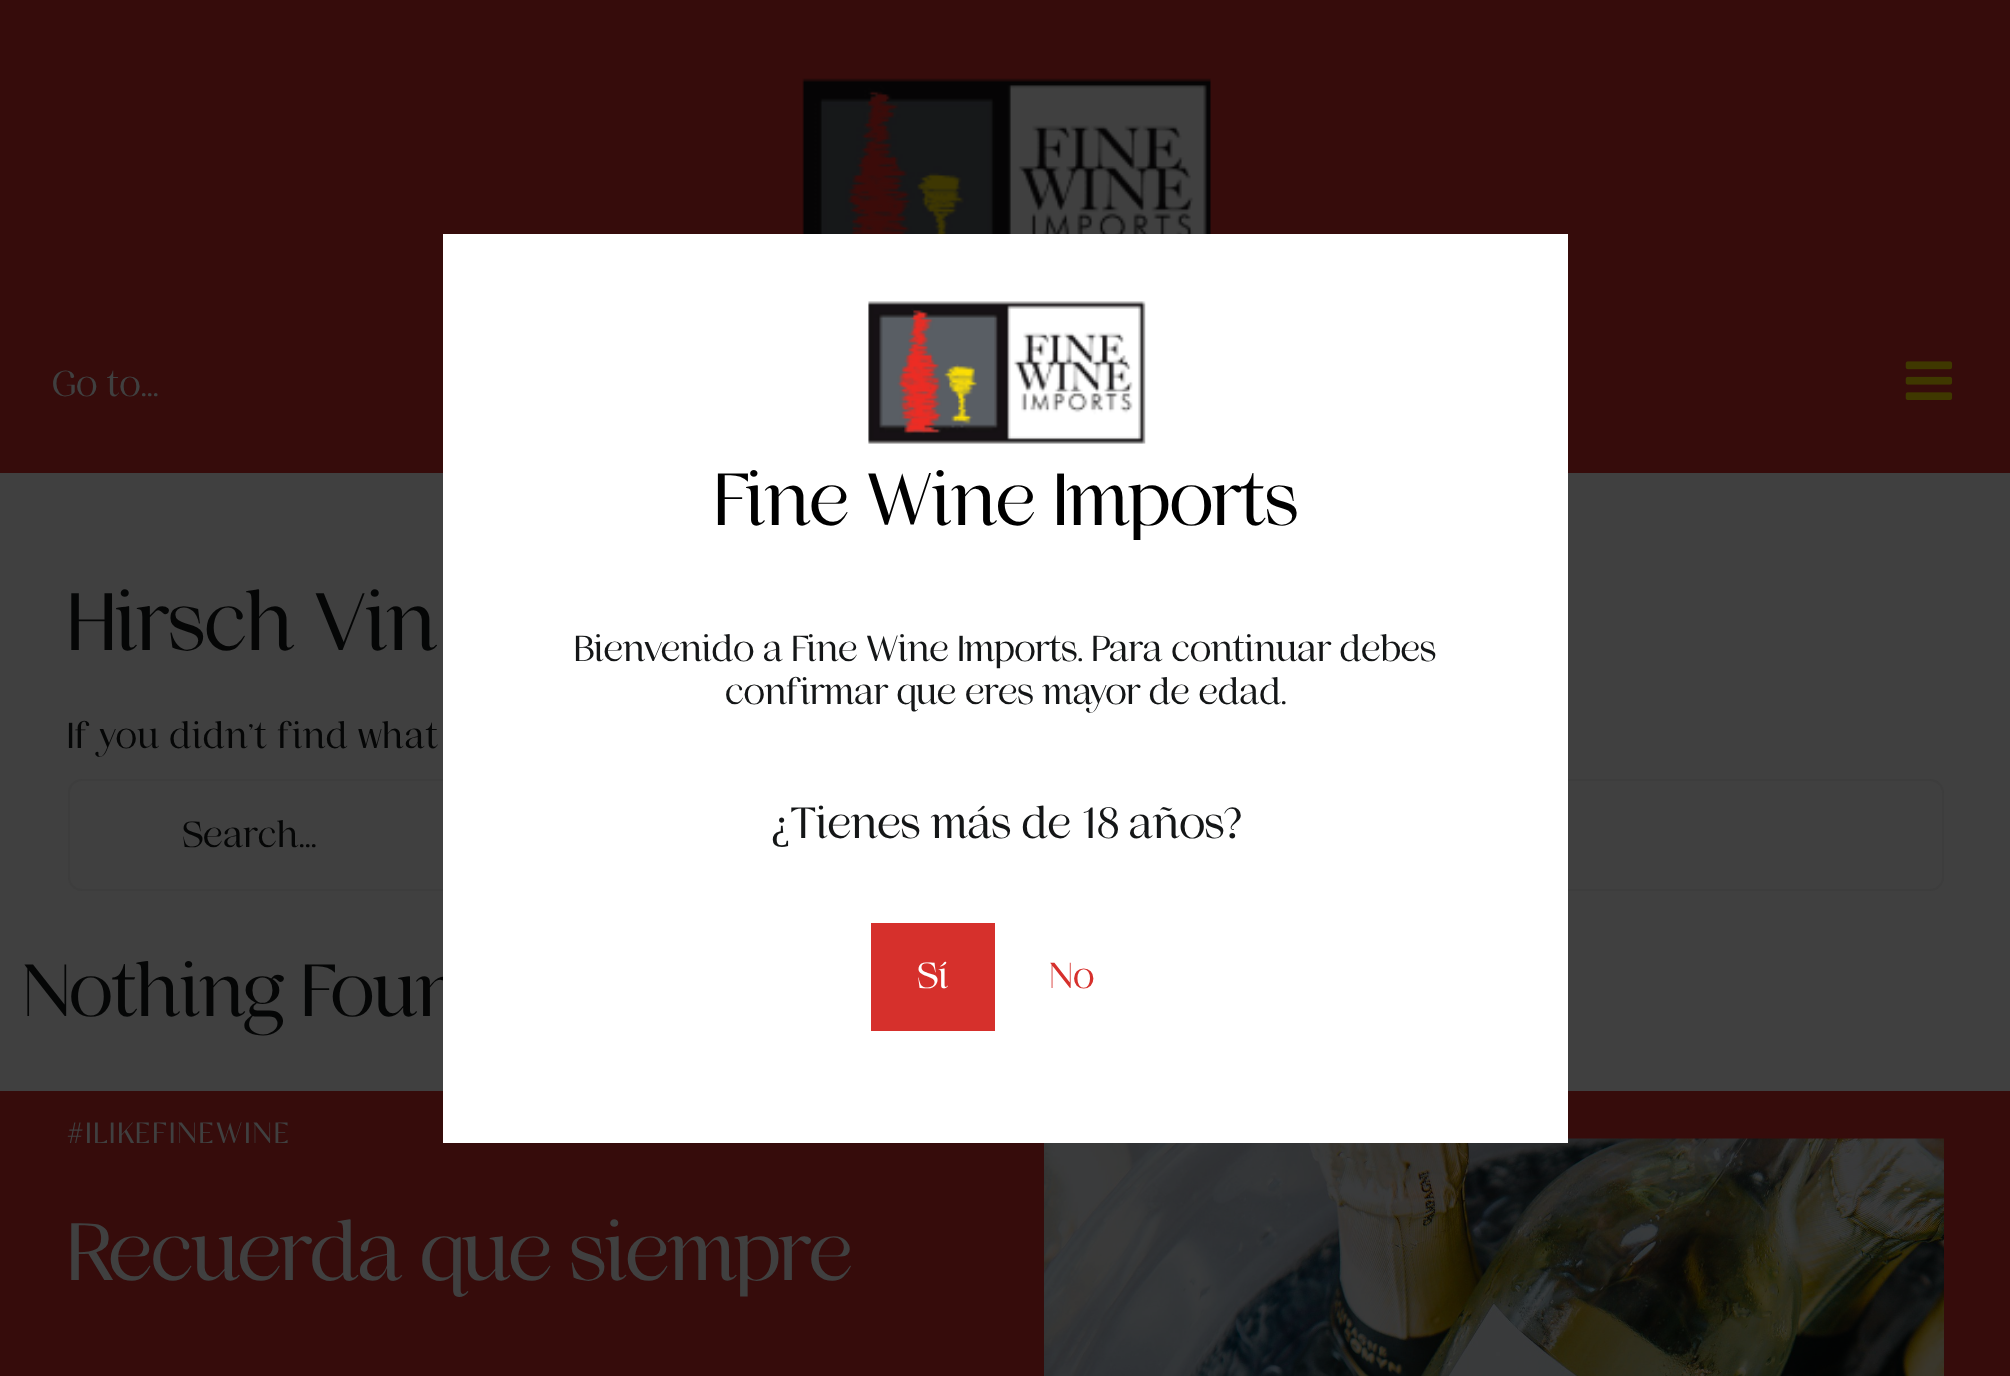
async function draw(canvas) {
  canvas.width = 2010;
  canvas.height = 1376;
  const ctx = canvas.getContext('2d');
  ctx.miterLimit = 4;
  ctx.fontKerning = 'normal';
  function label(s, x, y, font, color) {
    ctx.font = font;
    ctx.fillStyle = color;
    ctx.fillText(s, x, y);
  }
  function rect(x, y, w, h, color) {
    ctx.fillStyle = color;
    ctx.fillRect(x, y, w, h);
  }
  async function image(src, x, y, w, h) {
    const img = new Image();
    img.src = src;
    await img.decode();
    ctx.drawImage(img, x, y, w, h);
  }

  rect(0, 0, 2010, 1376, '#404040');
  rect(0, 0, 2010, 473, '#360c0b');
  await image('assets/img1.png', 802, 78, 409, 156);
  label('Go to...', 52, 396, '36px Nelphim', '#404040');
  await image('assets/img2.png', 1905, 361, 48, 39);
  ctx.letterSpacing = '-1.25px';
  label('Hirsch Vin', 67, 650, '81px Nelphim', '#050606');
  ctx.letterSpacing = '0.5px';
  label('If you didn’t find what', 67, 748, '36px Nelphim', '#050606');
  ctx.beginPath();
  ctx.roundRect(69, 780, 1874, 110, 13);
  ctx.strokeStyle = '#3d3d3d';
  ctx.lineWidth = 2;
  ctx.stroke();
  ctx.letterSpacing = '0px';
  label('Search...', 182, 847, '36px Nelphim', '#050606');
  ctx.letterSpacing = '-1.1px';
  label('Nothing Foun', 22, 1016, '73.5px Nelphim', '#050606');
  rect(0, 1091, 2010, 285, '#360c0b');
  ctx.letterSpacing = '2.25px';
  label('#ILIKEFINEWINE', 67, 1143, '29.25px Nelphim', '#404040');
  ctx.letterSpacing = '-2.3px';
  label('Recuerda que siempre', 67, 1280, '81px Nelphim', '#404040');
  await image('assets/img3.png', 1044, 1138, 900, 238);
  rect(443, 234, 1125, 909, '#fff');
  await image('assets/img4.png', 868, 301, 278, 143);
  ctx.letterSpacing = '-1.1px';
  label('Fine Wine Imports', 714, 525, '73.5px Nelphim', '#000');
  ctx.letterSpacing = '-0.55px';
  label('Bienvenido a Fine Wine Imports. Para continuar debes', 574, 661, '36px Nelphim', '#141617');
  label('confirmar que eres mayor de edad.', 725, 704, '36px Nelphim', '#141617');
  ctx.letterSpacing = '-0.65px';
  label('¿', 771, 838, '43.5px Liberation Serif', '#141617');
  label('Tienes más de 18 años?', 790, 838, '43.5px Nelphim', '#141617');
  rect(871, 923, 124, 108, '#d6302c');
  ctx.letterSpacing = '0.5px';
  label('Sí', 917, 988, '36px Nelphim', '#fff');
  label('No', 1049, 988, '36px Nelphim', '#d6302c');
}

draw(document.querySelector('canvas'));
